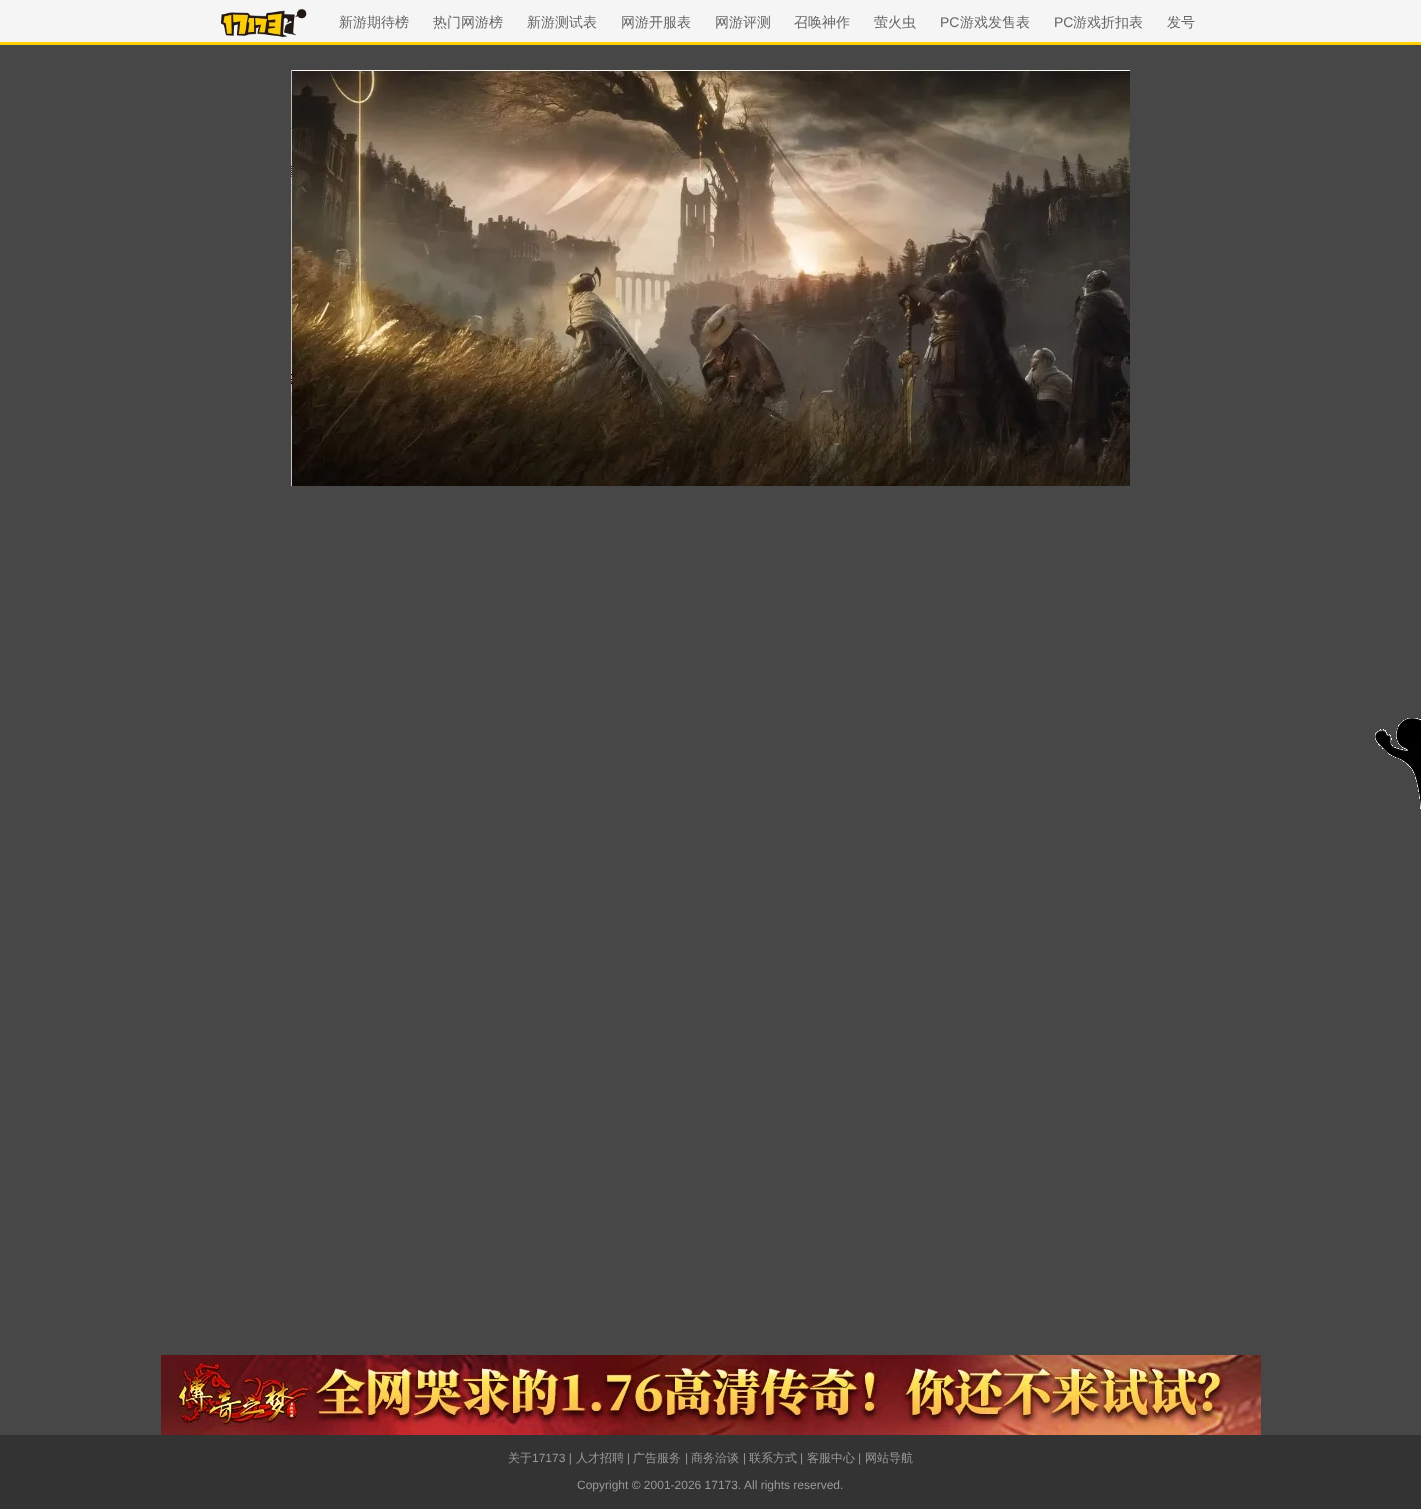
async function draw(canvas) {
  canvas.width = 1421;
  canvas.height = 1509;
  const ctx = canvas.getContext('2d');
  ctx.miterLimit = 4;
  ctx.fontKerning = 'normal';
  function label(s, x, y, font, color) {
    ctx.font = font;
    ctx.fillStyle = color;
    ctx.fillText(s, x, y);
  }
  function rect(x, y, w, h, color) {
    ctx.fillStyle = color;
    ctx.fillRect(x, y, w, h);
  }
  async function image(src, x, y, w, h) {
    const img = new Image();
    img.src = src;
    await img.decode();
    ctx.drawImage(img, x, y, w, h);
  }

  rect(0, 0, 1421, 1509, '#474747');
  rect(0, 0, 1421, 42, '#f5f5f5');
  rect(0, 42, 1421, 3, '#ffcd00');
  await image('assets/img1.png', 221, 9, 86, 28);
  label('新游期待榜', 339, 27, '500 14px WenQuanYi Zen Hei', '#666');
  label('热门网游榜', 433, 27, '500 14px WenQuanYi Zen Hei', '#666');
  label('新游测试表', 527, 27, '500 14px WenQuanYi Zen Hei', '#666');
  label('网游开服表', 621, 27, '500 14px WenQuanYi Zen Hei', '#666');
  label('网游评测', 715, 27, '500 14px WenQuanYi Zen Hei', '#666');
  label('召唤神作', 794, 27, '500 14px WenQuanYi Zen Hei', '#666');
  label('萤火虫', 874, 27, '500 14px WenQuanYi Zen Hei', '#666');
  label('PC', 940, 27, '14px Liberation Sans', '#666');
  label('游戏发售表', 960, 27, '500 14px WenQuanYi Zen Hei', '#666');
  label('PC', 1054, 27, '14px Liberation Sans', '#666');
  label('游戏折扣表', 1073, 27, '500 14px WenQuanYi Zen Hei', '#666');
  label('发号', 1167, 27, '500 14px WenQuanYi Zen Hei', '#666');
  await image('assets/img2.png', 291, 70, 839, 416);
  await image('assets/img3.png', 161, 1355, 1100, 80);
  await image('assets/img4.png', 1375, 718, 46, 91);
  rect(0, 1435, 1421, 74, '#333');
  label('关于', 508, 1462, '500 12px WenQuanYi Zen Hei', '#999');
  label('17173 |', 532, 1462, '12px Liberation Sans', '#999');
  label('人才招聘', 576, 1462, '500 12px WenQuanYi Zen Hei', '#999');
  label('|', 627, 1462, '12px Liberation Sans', '#999');
  label('广告服务', 633, 1462, '500 12px WenQuanYi Zen Hei', '#999');
  label('|', 685, 1462, '12px Liberation Sans', '#999');
  label('商务洽谈', 691, 1462, '500 12px WenQuanYi Zen Hei', '#999');
  label('|', 743, 1462, '12px Liberation Sans', '#999');
  label('联系方式', 749, 1462, '500 12px WenQuanYi Zen Hei', '#999');
  label('|', 800, 1462, '12px Liberation Sans', '#999');
  label('客服中心', 807, 1462, '500 12px WenQuanYi Zen Hei', '#999');
  label('|', 858, 1462, '12px Liberation Sans', '#999');
  label('网站导航', 865, 1462, '500 12px WenQuanYi Zen Hei', '#999');
  label('Copyright © 2001-2026 17173. All rights reserved.', 577, 1489, '12px Liberation Sans', '#999');
}

draw(document.querySelector('canvas'));
